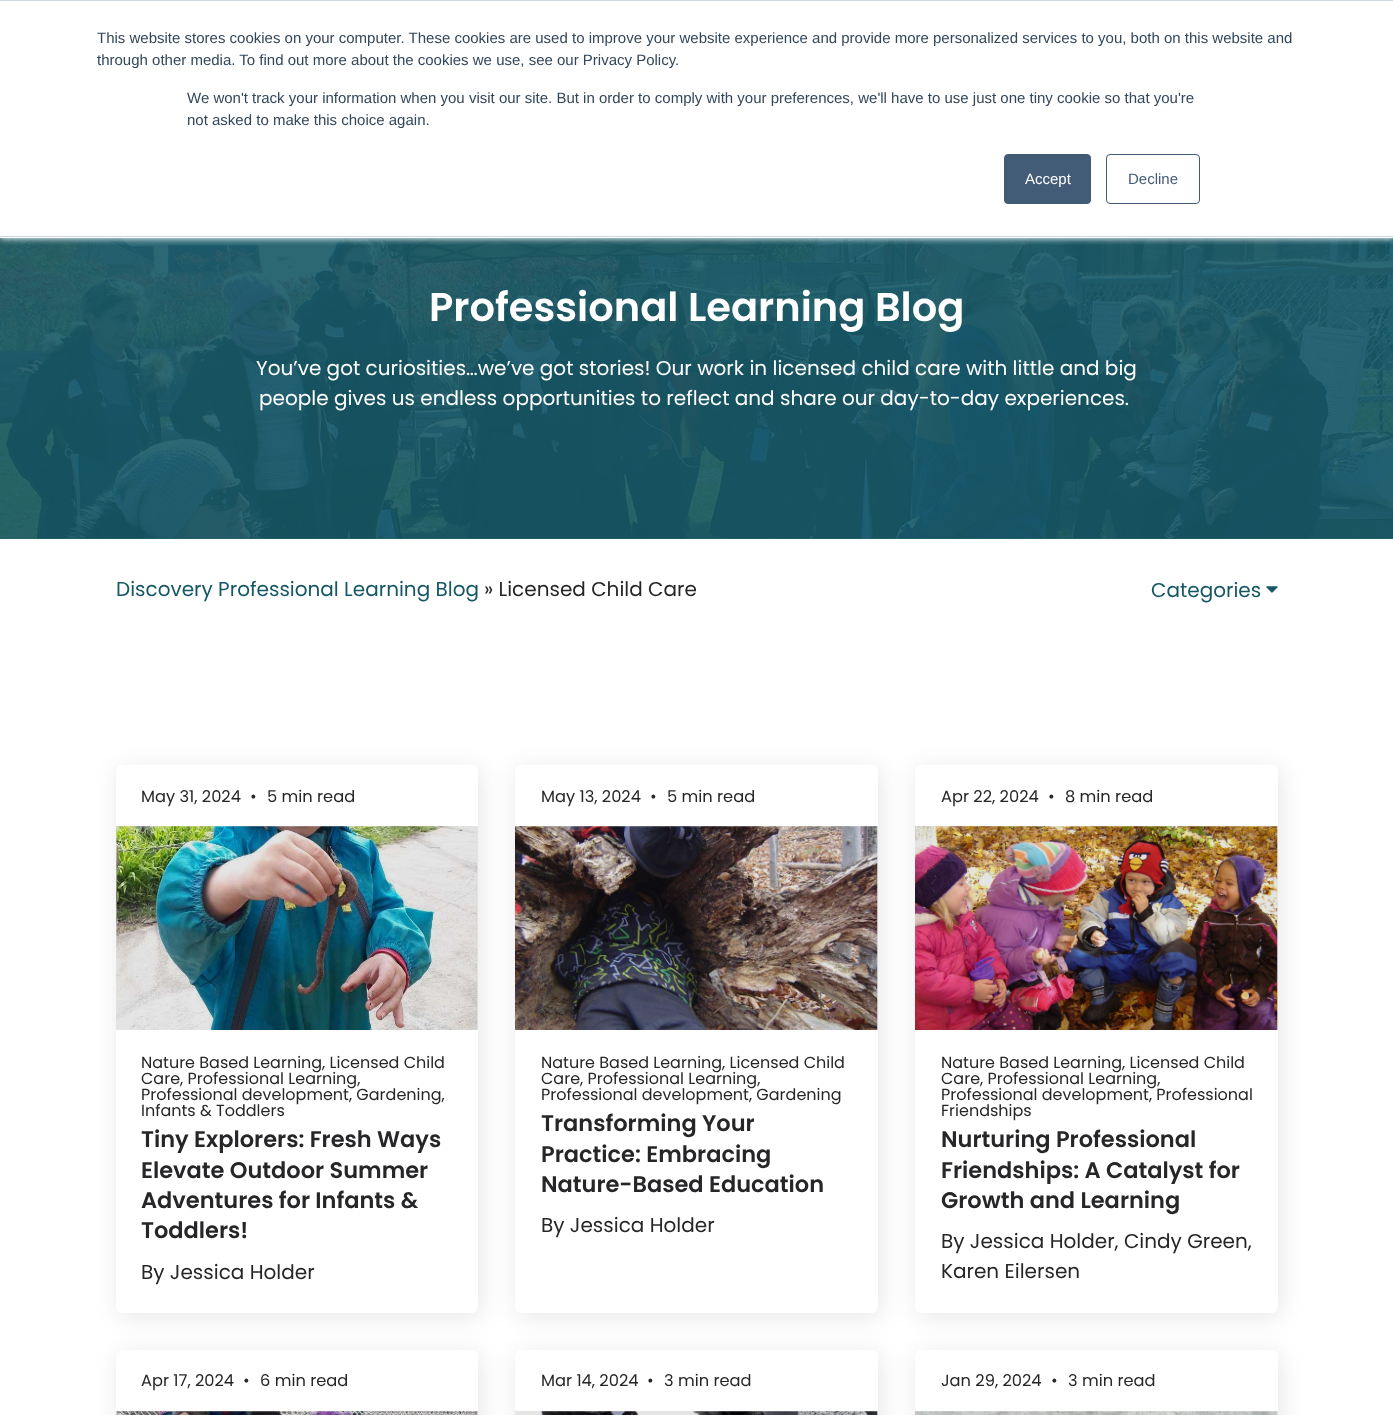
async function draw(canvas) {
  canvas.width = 1393;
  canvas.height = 1415;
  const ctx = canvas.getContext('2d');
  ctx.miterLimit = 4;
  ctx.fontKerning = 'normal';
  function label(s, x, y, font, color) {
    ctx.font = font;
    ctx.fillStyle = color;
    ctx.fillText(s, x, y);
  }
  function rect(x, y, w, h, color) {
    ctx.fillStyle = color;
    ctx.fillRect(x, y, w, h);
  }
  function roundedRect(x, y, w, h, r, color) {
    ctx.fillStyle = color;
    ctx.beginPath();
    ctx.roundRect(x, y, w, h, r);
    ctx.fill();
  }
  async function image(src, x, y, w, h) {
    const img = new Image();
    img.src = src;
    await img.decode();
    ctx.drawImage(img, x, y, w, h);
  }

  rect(0, 0, 1393, 1415, '#fff');
  rect(0, 538, 1393, 1, '#2c6874');
  await image('assets/img1.png', 0, 238, 1393, 301);
  ctx.fillStyle = '#eaf0f6';
  ctx.filter = 'blur(3px)';
  ctx.beginPath();
  ctx.rect(0, 1, 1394, 238);
  ctx.fill();
  ctx.filter = 'none';
  rect(0, 1, 1393, 237, '#fff');
  rect(0, 0, 1393, 1, '#cbd6e2');
  rect(0, 236, 1393, 1, '#cbd6e2');
  label('This website stores cookies on your computer. These cookies are used to improve your website experience and provide more personalized services to you, both on this website and', 97, 43, '15px Liberation Sans', '#33475b');
  label('through other media. To find out more about the cookies we use, see our Privacy Policy.', 97, 65, '15px Liberation Sans', '#33475b');
  label('We won\'t track your information when you visit our site. But in order to comply with your preferences, we\'ll have to use just one tiny cookie so that you\'re', 187, 103, '15px Liberation Sans', '#33475b');
  label('not asked to make this choice again.', 187, 125, '15px Liberation Sans', '#33475b');
  ctx.fillStyle = '#425b76';
  ctx.beginPath();
  ctx.roundRect(1004.5, 154.5, 86, 49, 3.5);
  ctx.fill();
  ctx.strokeStyle = '#425b76';
  ctx.stroke();
  label('Accept', 1025, 184, '15px Liberation Sans', '#fff');
  ctx.beginPath();
  ctx.roundRect(1106.5, 154.5, 93, 49, 3.5);
  ctx.stroke();
  label('Decline', 1128, 184, '15px Liberation Sans', '#425b76');
  label('Professional Learning Blog', 429, 321, '600 40px Poppins', '#fff');
  label('You’ve got curiosities…we’ve got stories! Our work in licensed child care with little and big', 256, 375, '20px Poppins', '#fff');
  label('people gives us endless opportunities to reflect and share our day-to-day experiences.', 259, 405, '20px Poppins', '#fff');
  label('Discovery Professional Learning Blog', 116, 596, '20px Poppins', '#155765');
  label('» Licensed Child Care', 484, 596, '20px Poppins', '#262628');
  label('Categories', 1151, 597, '20px Poppins', '#155765');
  await image('assets/img2.png', 1266, 586, 12, 7);
  ctx.fillStyle = '#0000001a';
  ctx.filter = 'blur(12px)';
  ctx.beginPath();
  ctx.roundRect(119, 769, 361, 547, 6);
  ctx.fill();
  ctx.filter = 'none';
  roundedRect(116, 765, 362, 548, 6, '#fff');
  label('May 31, 2024', 141, 802, '16.25px Poppins', '#262628');
  label('•', 250, 802, '16.25px Poppins', '#262628');
  label('5 min read', 267, 802, '16.25px Poppins', '#262628');
  await image('assets/img3.png', 116, 826, 362, 204);
  rect(116, 826, 362, 204, '#0000001a');
  label('Nature Based Learning, Licensed Child', 141, 1068, '16px Poppins', '#262628');
  label('Care, Professional Learning,', 141, 1084, '16px Poppins', '#262628');
  label('Professional development, Gardening,', 141, 1100, '16px Poppins', '#262628');
  label('Infants & Toddlers', 141, 1116, '16px Poppins', '#262628');
  label('Tiny Explorers: Fresh Ways', 141, 1147, '600 22.5px Poppins', '#262628');
  label('Elevate Outdoor Summer', 141, 1178, '600 22.5px Poppins', '#262628');
  label('Adventures for Infants &', 141, 1208, '600 22.5px Poppins', '#262628');
  label('Toddlers!', 141, 1238, '600 22.5px Poppins', '#262628');
  label('By Jessica Holder', 141, 1279, '20px Poppins', '#262628');
  ctx.fillStyle = '#0000001a';
  ctx.filter = 'blur(12px)';
  ctx.beginPath();
  ctx.roundRect(518, 769, 362, 547, 6);
  ctx.fill();
  ctx.filter = 'none';
  roundedRect(515, 765, 363, 548, 6, '#fff');
  label('May 13, 2024', 541, 802, '16.25px Poppins', '#262628');
  label('•', 650, 802, '16.25px Poppins', '#262628');
  label('5 min read', 667, 802, '16.25px Poppins', '#262628');
  await image('assets/img4.png', 515, 826, 363, 204);
  rect(515, 826, 363, 204, '#0000001a');
  label('Nature Based Learning, Licensed Child', 541, 1068, '16px Poppins', '#262628');
  label('Care, Professional Learning,', 541, 1084, '16px Poppins', '#262628');
  label('Professional development, Gardening', 541, 1100, '16px Poppins', '#262628');
  label('Transforming Your', 541, 1131, '600 22.5px Poppins', '#262628');
  label('Practice: Embracing', 541, 1162, '600 22.5px Poppins', '#262628');
  label('Nature-Based Education', 541, 1192, '600 22.5px Poppins', '#262628');
  label('By Jessica Holder', 541, 1232, '20px Poppins', '#262628');
  ctx.fillStyle = '#0000001a';
  ctx.filter = 'blur(12px)';
  ctx.beginPath();
  ctx.roundRect(918, 769, 362, 547, 6);
  ctx.fill();
  ctx.filter = 'none';
  roundedRect(915, 765, 363, 548, 6, '#fff');
  label('Apr 22, 2024', 941, 802, '16.25px Poppins', '#262628');
  label('•', 1048, 802, '16.25px Poppins', '#262628');
  label('8 min read', 1065, 802, '16.25px Poppins', '#262628');
  await image('assets/img5.png', 915, 826, 363, 204);
  rect(915, 826, 363, 204, '#0000001a');
  label('Nature Based Learning, Licensed Child', 941, 1068, '16px Poppins', '#262628');
  label('Care, Professional Learning,', 941, 1084, '16px Poppins', '#262628');
  label('Professional development, Professional', 941, 1100, '16px Poppins', '#262628');
  label('Friendships', 941, 1116, '16px Poppins', '#262628');
  label('Nurturing Professional', 941, 1147, '600 22.5px Poppins', '#262628');
  label('Friendships: A Catalyst for', 941, 1178, '600 22.5px Poppins', '#262628');
  label('Growth and Learning', 941, 1208, '600 22.5px Poppins', '#262628');
  label('By Jessica Holder, Cindy Green,', 941, 1248, '20px Poppins', '#262628');
  label('Karen Eilersen', 941, 1278, '20px Poppins', '#262628');
  ctx.fillStyle = '#0000001a';
  ctx.filter = 'blur(12px)';
  ctx.beginPath();
  ctx.roundRect(119, 1354, 361, 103, 6);
  ctx.fill();
  ctx.filter = 'none';
  roundedRect(116, 1350, 362, 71, 6, '#fff');
  label('Apr 17, 2024', 141, 1386, '16.25px Poppins', '#262628');
  label('•', 243, 1386, '16.25px Poppins', '#262628');
  label('6 min read', 260, 1386, '16.25px Poppins', '#262628');
  await image('assets/img6.png', 116, 1411, 362, 4);
  rect(116, 1411, 362, 4, '#0000001a');
  ctx.filter = 'blur(12px)';
  ctx.beginPath();
  ctx.roundRect(518, 1354, 362, 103, 6);
  ctx.fill();
  ctx.filter = 'none';
  roundedRect(515, 1350, 363, 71, 6, '#fff');
  label('Mar 14, 2024', 541, 1386, '16.25px Poppins', '#262628');
  label('•', 647, 1386, '16.25px Poppins', '#262628');
  label('3 min read', 664, 1386, '16.25px Poppins', '#262628');
  await image('assets/img7.png', 540, 1411, 338, 4);
  rect(515, 1411, 363, 4, '#0000001a');
  ctx.filter = 'blur(12px)';
  ctx.beginPath();
  ctx.roundRect(918, 1354, 362, 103, 6);
  ctx.fill();
  ctx.filter = 'none';
  roundedRect(915, 1350, 363, 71, 6, '#fff');
  label('Jan 29, 2024', 941, 1386, '16.25px Poppins', '#262628');
  label('•', 1051, 1386, '16.25px Poppins', '#262628');
  label('3 min read', 1068, 1386, '16.25px Poppins', '#262628');
  await image('assets/img8.png', 915, 1411, 363, 4);
  rect(915, 1411, 363, 4, '#0000001a');
}

draw(document.querySelector('canvas'));
